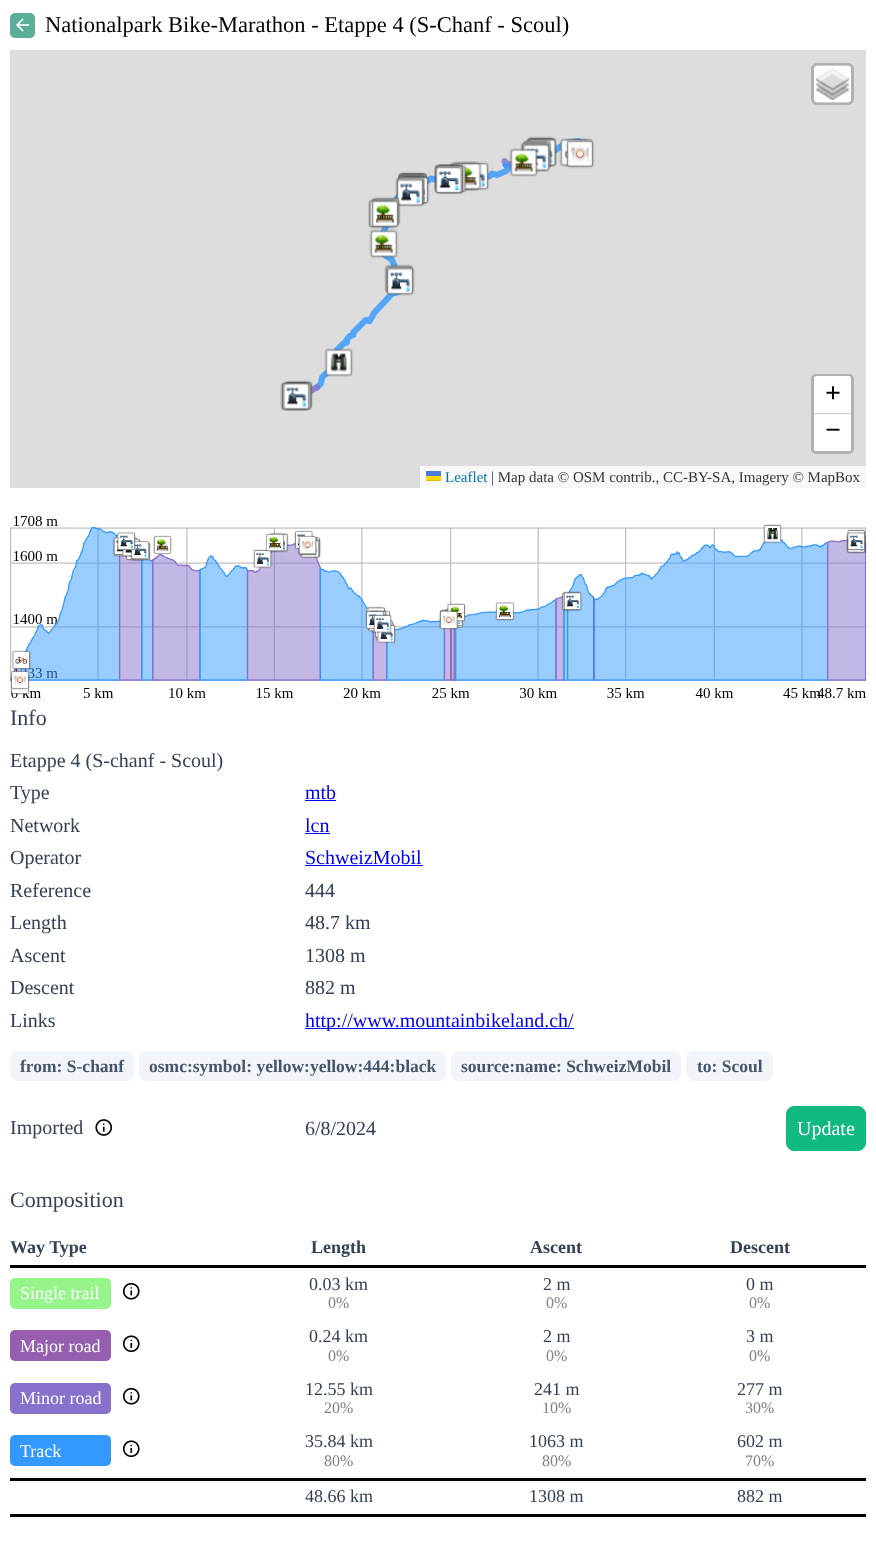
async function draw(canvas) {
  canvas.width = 876;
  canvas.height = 1552;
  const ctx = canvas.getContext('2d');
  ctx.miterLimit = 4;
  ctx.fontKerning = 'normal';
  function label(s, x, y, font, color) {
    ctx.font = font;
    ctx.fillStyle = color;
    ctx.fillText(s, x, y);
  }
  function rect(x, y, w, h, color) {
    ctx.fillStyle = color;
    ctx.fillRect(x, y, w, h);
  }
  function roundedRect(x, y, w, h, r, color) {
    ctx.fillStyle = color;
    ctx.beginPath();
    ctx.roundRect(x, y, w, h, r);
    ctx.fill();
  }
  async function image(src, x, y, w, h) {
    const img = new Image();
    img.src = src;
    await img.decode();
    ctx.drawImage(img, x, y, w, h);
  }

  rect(0, 0, 876, 1552, '#fff');
  roundedRect(10, 13, 25, 25, 5, '#5aad97');
  await image('assets/img1.png', 16, 18, 14, 14);
  label('Nationalpark Bike-Marathon - Etappe 4 (S-Chanf - Scoul)', 45, 32, '22.5px Liberation Serif', '#000');
  rect(10, 50, 856, 438, '#ddd');
  await image('assets/img60.png', 310, 138, 273, 257);
  await image('assets/img2.png', 526, 136, 30, 30);
  await image('assets/img3.png', 526, 136, 30, 30);
  await image('assets/img4.png', 525, 138, 30, 29);
  await image('assets/img5.png', 526, 138, 30, 29);
  await image('assets/img6.png', 528, 138, 29, 29);
  await image('assets/img7.png', 528, 138, 29, 29);
  await image('assets/img10.png', 564, 138, 30, 29);
  await image('assets/img8.png', 559, 138, 29, 29);
  await image('assets/img9.png', 523, 139, 29, 30);
  await image('assets/img11.png', 521, 140, 30, 30);
  await image('assets/img12.png', 565, 139, 30, 30);
  await image('assets/img13.png', 520, 141, 30, 30);
  await image('assets/img14.png', 520, 143, 30, 29);
  await image('assets/img15.png', 521, 143, 30, 29);
  await image('assets/img18.png', 450, 161, 29, 30);
  await image('assets/img16.png', 449, 161, 29, 30);
  await image('assets/img17.png', 509, 148, 30, 29);
  await image('assets/img21.png', 461, 161, 29, 30);
  await image('assets/img19.png', 453, 161, 29, 30);
  await image('assets/img24.png', 435, 164, 30, 30);
  await image('assets/img20.png', 434, 164, 29, 30);
  await image('assets/img22.png', 434, 164, 29, 30);
  await image('assets/img23.png', 434, 164, 29, 30);
  await image('assets/img27.png', 438, 164, 29, 30);
  await image('assets/img25.png', 435, 164, 30, 30);
  await image('assets/img26.png', 435, 164, 30, 30);
  await image('assets/img28.png', 398, 171, 29, 10);
  await image('assets/img29.png', 434, 165, 30, 30);
  await image('assets/img30.png', 398, 173, 29, 8);
  await image('assets/img31.png', 398, 173, 29, 8);
  await image('assets/img32.png', 398, 173, 29, 8);
  await image('assets/img33.png', 398, 173, 29, 8);
  await image('assets/img34.png', 399, 173, 30, 29);
  await image('assets/img35.png', 398, 174, 29, 30);
  await image('assets/img36.png', 398, 174, 29, 30);
  await image('assets/img40.png', 399, 175, 30, 30);
  await image('assets/img37.png', 396, 175, 30, 30);
  await image('assets/img39.png', 398, 175, 29, 30);
  await image('assets/img41.png', 400, 175, 30, 30);
  await image('assets/img38.png', 396, 175, 30, 30);
  await image('assets/img42.png', 395, 177, 30, 29);
  await image('assets/img43.png', 395, 178, 30, 29);
  await image('assets/img44.png', 371, 196, 30, 30);
  await image('assets/img45.png', 370, 198, 30, 29);
  await image('assets/img46.png', 368, 199, 29, 30);
  await image('assets/img47.png', 368, 199, 29, 30);
  await image('assets/img48.png', 370, 199, 30, 30);
  await image('assets/img49.png', 369, 229, 30, 30);
  await image('assets/img50.png', 384, 264, 30, 30);
  await image('assets/img51.png', 385, 265, 30, 30);
  await image('assets/img52.png', 385, 266, 30, 30);
  await image('assets/img53.png', 324, 348, 30, 29);
  await image('assets/img54.png', 284, 380, 30, 30);
  await image('assets/img55.png', 280, 381, 30, 30);
  await image('assets/img58.png', 283, 381, 29, 30);
  await image('assets/img56.png', 280, 381, 30, 30);
  await image('assets/img59.png', 283, 381, 29, 30);
  await image('assets/img57.png', 281, 381, 30, 30);
  roundedRect(814, 65, 37, 38, 4, '#fff');
  ctx.beginPath();
  ctx.roundRect(812.5, 64.5, 40, 39, 4.5);
  ctx.strokeStyle = '#00000033';
  ctx.lineWidth = 3;
  ctx.stroke();
  await image('assets/img61.png', 816, 68, 33, 32);
  ctx.beginPath();
  ctx.roundRect(812.5, 375.5, 40, 77, 3.5);
  ctx.strokeStyle = '#b1b1b1';
  ctx.stroke();
  ctx.beginPath();
  ctx.roundRect(814, 376, 37, 38, [2.5, 2.5, 0, 0]);
  ctx.fill();
  rect(814, 413, 37, 1, '#ccc');
  label('+', 825, 402, 'bold 28px Liberation Serif', '#000');
  ctx.fillStyle = '#fff';
  ctx.beginPath();
  ctx.roundRect(814, 414, 37, 37, [0, 0, 2.5, 2.5]);
  ctx.fill();
  label('−', 825, 439, 'bold 28px Liberation Serif', '#000');
  rect(420, 466, 446, 22, '#f8f8f8');
  label('Leaflet', 445, 482, '15px Liberation Serif', '#0078a8');
  rect(426, 471, 15, 5, '#4c7be1');
  rect(426, 476, 15, 4, '#ffd500');
  rect(426, 480, 15, 1, '#e0bc00');
  label('| Map data © OSM contrib., CC-BY-SA, Imagery © MapBox', 491, 482, '15px Liberation Serif', '#333');
  await image('assets/img62.png', 10, 516, 857, 182);
  label('Info', 10, 725, '22px Liberation Serif', '#334155');
  label('Etappe 4 (S-chanf - Scoul)', 10, 767, '20px Liberation Serif', '#334155');
  label('Type', 10, 799, '20px Liberation Serif', '#334155');
  label('mtb', 305, 799, '20px Liberation Serif', '#00e');
  rect(305, 800, 31, 1, '#00e');
  label('Network', 10, 832, '20px Liberation Serif', '#334155');
  label('lcn', 305, 832, '20px Liberation Serif', '#00e');
  rect(305, 833, 25, 1, '#00e');
  label('Operator', 10, 864, '20px Liberation Serif', '#334155');
  label('SchweizMobil', 305, 864, '20px Liberation Serif', '#00e');
  rect(305, 865, 118, 1, '#00e');
  label('Reference', 10, 897, '20px Liberation Serif', '#334155');
  label('444', 305, 897, '20px Liberation Serif', '#334155');
  label('Length', 10, 929, '20px Liberation Serif', '#334155');
  label('48.7 km', 305, 929, '20px Liberation Serif', '#334155');
  label('Ascent', 10, 962, '20px Liberation Serif', '#334155');
  label('1308 m', 305, 962, '20px Liberation Serif', '#334155');
  label('Descent', 10, 994, '20px Liberation Serif', '#334155');
  label('882 m', 305, 994, '20px Liberation Serif', '#334155');
  label('Links', 10, 1027, '20px Liberation Serif', '#334155');
  rect(305, 1028, 269, 1, '#00e');
  ctx.save();
  ctx.beginPath();
  ctx.rect(305, 1009, 561, 22);
  ctx.clip();
  label('http://www.mountainbikeland.ch/', 305, 1027, '20px Liberation Serif', '#00e');
  ctx.restore();
  roundedRect(10, 1051, 124, 30, 8, '#f1f5f9');
  label('from: S-chanf', 20, 1072, 'bold 17.5px Liberation Serif', '#475569');
  roundedRect(139, 1051, 307, 30, 8, '#f1f5f9');
  label('osmc:symbol: yellow:yellow:444:black', 149, 1072, 'bold 17.5px Liberation Serif', '#475569');
  roundedRect(451, 1051, 230, 30, 8, '#f1f5f9');
  label('source:name: SchweizMobil', 461, 1072, 'bold 17.5px Liberation Serif', '#475569');
  roundedRect(686, 1051, 87, 30, 8, '#f1f5f9');
  label('to: Scoul', 697, 1072, 'bold 17.5px Liberation Serif', '#475569');
  label('Imported', 10, 1134, '20px Liberation Serif', '#334155');
  await image('assets/img63.png', 95, 1119, 18, 17);
  label('6/8/2024', 305, 1135, '20px Liberation Serif', '#334155');
  ctx.fillStyle = '#10b981';
  ctx.beginPath();
  ctx.roundRect(786.5, 1106.5, 79, 44, 7.5);
  ctx.fill();
  ctx.strokeStyle = '#10b981';
  ctx.lineWidth = 1;
  ctx.stroke();
  label('Update', 797, 1135, '20px Liberation Serif', '#fff');
  label('Composition', 10, 1207, '22px Liberation Serif', '#334155');
  label('Way Type', 10, 1253, 'bold 18px Liberation Serif', '#334155');
  label('Length', 311, 1253, 'bold 18px Liberation Serif', '#334155');
  label('Ascent', 530, 1253, 'bold 18px Liberation Serif', '#334155');
  rect(10, 1265, 856, 3, '#000');
  label('Descent', 730, 1253, 'bold 18px Liberation Serif', '#334155');
  roundedRect(10, 1278, 101, 31, 5, '#95f58b');
  label('Single trail', 20, 1299, '18px Liberation Serif', '#fff');
  await image('assets/img64.png', 122, 1282, 18, 18);
  label('0.03 km', 309, 1290, '18px Liberation Serif', '#334155');
  label('0%', 328, 1308, '16px Liberation Serif', '#808080');
  label('2 m', 543, 1290, '18px Liberation Serif', '#334155');
  label('0%', 546, 1308, '16px Liberation Serif', '#808080');
  label('0 m', 746, 1290, '18px Liberation Serif', '#334155');
  label('0%', 749, 1308, '16px Liberation Serif', '#808080');
  roundedRect(10, 1330, 101, 31, 5, '#955eae');
  label('Major road', 20, 1352, '18px Liberation Serif', '#fff');
  await image('assets/img65.png', 122, 1335, 18, 18);
  label('0.24 km', 309, 1342, '18px Liberation Serif', '#334155');
  label('0%', 328, 1361, '16px Liberation Serif', '#808080');
  label('2 m', 543, 1342, '18px Liberation Serif', '#334155');
  label('0%', 546, 1361, '16px Liberation Serif', '#808080');
  label('3 m', 746, 1342, '18px Liberation Serif', '#334155');
  label('0%', 749, 1361, '16px Liberation Serif', '#808080');
  roundedRect(10, 1383, 101, 31, 5, '#8771cc');
  label('Minor road', 20, 1404, '18px Liberation Serif', '#fff');
  await image('assets/img64.png', 122, 1387, 18, 18);
  label('12.55 km', 305, 1395, '18px Liberation Serif', '#334155');
  label('20%', 324, 1413, '16px Liberation Serif', '#808080');
  label('241 m', 534, 1395, '18px Liberation Serif', '#334155');
  label('10%', 542, 1413, '16px Liberation Serif', '#808080');
  label('277 m', 737, 1395, '18px Liberation Serif', '#334155');
  label('30%', 745, 1413, '16px Liberation Serif', '#808080');
  roundedRect(10, 1435, 101, 31, 5, '#39f');
  label('Track', 20, 1457, '18px Liberation Serif', '#fff');
  await image('assets/img65.png', 122, 1440, 18, 18);
  label('35.84 km', 305, 1447, '18px Liberation Serif', '#334155');
  label('80%', 324, 1466, '16px Liberation Serif', '#808080');
  label('1063 m', 529, 1447, '18px Liberation Serif', '#334155');
  label('80%', 542, 1466, '16px Liberation Serif', '#808080');
  label('602 m', 737, 1447, '18px Liberation Serif', '#334155');
  label('70%', 745, 1466, '16px Liberation Serif', '#808080');
  label('48.66 km', 305, 1502, '18px Liberation Serif', '#334155');
  label('1308 m', 529, 1502, '18px Liberation Serif', '#334155');
  rect(10, 1478, 856, 3, '#000');
  rect(10, 1514, 856, 3, '#000');
  label('882 m', 737, 1502, '18px Liberation Serif', '#334155');
}

draw(document.querySelector('canvas'));
